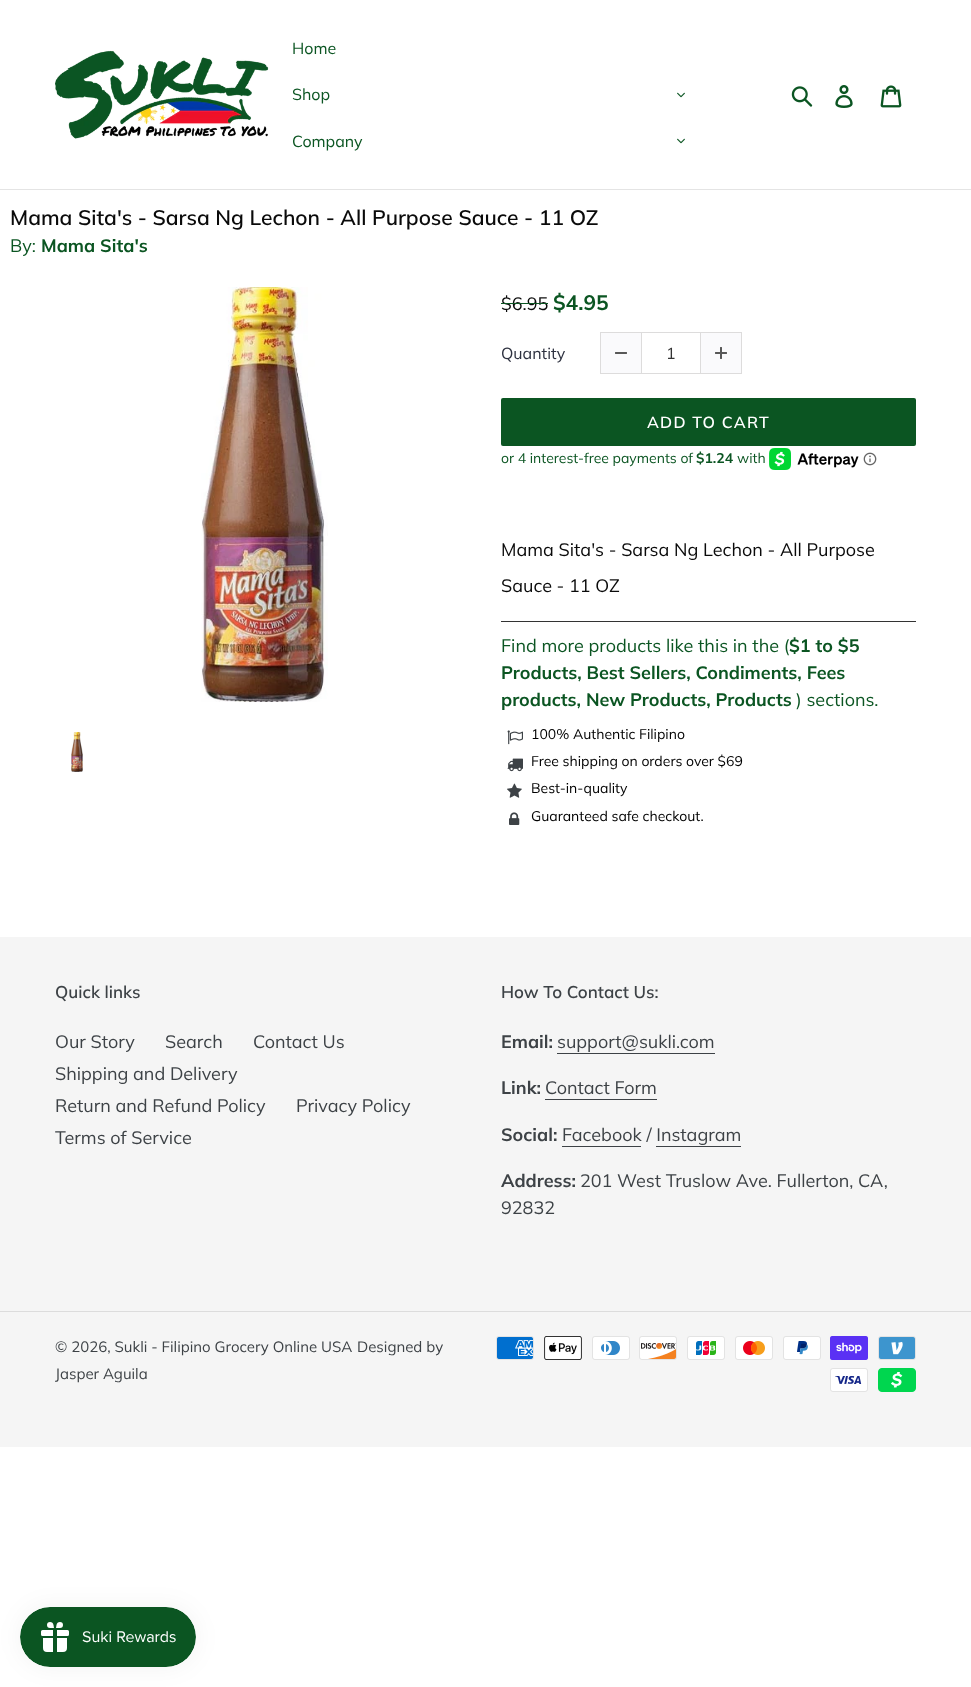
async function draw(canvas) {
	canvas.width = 971;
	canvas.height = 1687;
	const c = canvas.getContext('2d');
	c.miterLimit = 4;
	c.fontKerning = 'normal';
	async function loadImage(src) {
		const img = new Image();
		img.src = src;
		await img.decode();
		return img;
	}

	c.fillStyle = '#fff';
	c.fillRect(0, 0, 971, 1687);
	c.fillStyle = '#e4e4e4';
	c.fillRect(0, 189, 971, 1);
	c.drawImage(await loadImage('img1.png'), 55, 50, 214, 89);
	c.font = '16px Muli';
	c.fillStyle = '#0b5522';
	c.fillText('Home', 292, 54);
	c.fillText('Shop', 292, 100);
	c.drawImage(await loadImage('img2.png'), 677, 92, 8, 6);
	c.fillText('Company', 292, 147);
	c.drawImage(await loadImage('img2.png'), 677, 138, 8, 6);
	c.drawImage(await loadImage('img3.png'), 791, 86, 22, 21);
	c.drawImage(await loadImage('img4.png'), 835, 85, 18, 23);
	c.drawImage(await loadImage('img5.png'), 880, 85, 22, 23);
	c.font = '600 21px Muli';
	c.fillStyle = '#0a0a0a';
	c.fillText('Mama Sita\'s - Sarsa Ng Lechon - All Purpose Sauce - 11 OZ', 10, 225);
	c.font = '18px Muli';
	c.fillStyle = '#0b5522';
	c.fillText('By:', 10, 252);
	c.font = 'bold 18px Muli';
	c.fillText('Mama Sita\'s', 41, 252);
	c.drawImage(await loadImage('img6.png'), 201, 287, 127, 415);
	c.drawImage(await loadImage('img7.png'), 71, 732, 12, 40);
	c.font = '18px Muli';
	c.fillStyle = '#0a0a0a';
	c.fillText('$6.95', 501, 310);
	c.fillStyle = '#0b5522';
	c.fillRect(501, 303, 47, 1);
	c.font = 'bold 21px Muli';
	c.fillText('$4.95', 553, 310);
	c.font = '16px Muli';
	c.fillStyle = '#2d313f';
	c.fillText('Quantity', 501, 359);
	c.fillStyle = '#dddcdc';
	c.fillRect(641, 333, 1, 40);
	c.fillRect(700, 333, 1, 40);
	c.strokeStyle = '#dddcdc';
	c.strokeRect(600.5, 332.5, 141, 41);
	c.fillStyle = '#fafafc';
	c.fillRect(601, 333, 40, 40);
	c.drawImage(await loadImage('img8.png'), 615, 352, 12, 2);
	c.fillStyle = '#333';
	c.fillText('1', 666, 359);
	c.fillStyle = '#fafafc';
	c.fillRect(701, 333, 40, 40);
	c.drawImage(await loadImage('img9.png'), 715, 347, 12, 12);
	c.fillStyle = '#0b5522';
	c.beginPath();
	c.roundRect(501, 398, 415, 48, 2);
	c.fill();
	c.letterSpacing = '1.25px';
	c.font = '600 16px Muli';
	c.fillStyle = '#fff';
	c.fillText('ADD TO CART', 647, 428);
	c.letterSpacing = '0px';
	c.font = '14px Muli';
	c.fillStyle = '#0b5522';
	c.fillText('or 4 interest-free payments of', 501, 463);
	c.font = 'bold 14px Muli';
	c.fillText('$1.24', 696, 463);
	c.font = '14px Muli';
	c.fillText('with', 737, 463);
	c.drawImage(await loadImage('img10.png'), 769, 448, 90, 22);
	c.drawImage(await loadImage('img11.png'), 863, 452, 14, 14);
	c.font = '18px Muli';
	c.fillStyle = '#0a0a0a';
	c.fillText('Mama Sita\'s - Sarsa Ng Lechon - All Purpose', 501, 556);
	c.fillText('Sauce - 11 OZ', 501, 592);
	c.fillStyle = '#333';
	c.fillRect(501, 621, 415, 1);
	c.fillStyle = '#0b5522';
	c.fillText('Find more products like this in the (', 501, 652);
	c.font = 'bold 18px Muli';
	for (const [text, x, y] of [
		['$1 to $5', 789, 652],
		['Products, Best Sellers, Condiments, Fees', 501, 679],
		['products, New Products, Products', 501, 706],
	]) {
		c.fillText(text, x, y);
	}
	c.font = '18px Muli';
	c.fillText(') sections.', 796, 706);
	c.drawImage(await loadImage('img12.png'), 507, 730, 16, 15);
	c.font = '14px Muli';
	c.fillStyle = '#000';
	c.fillText('100% Authentic Filipino', 531, 739);
	c.drawImage(await loadImage('img13.png'), 507, 758, 16, 14);
	c.fillText('Free shipping on orders over $69', 531, 766);
	c.drawImage(await loadImage('img14.png'), 507, 783, 15, 15);
	c.fillText('Best-in-quality', 531, 793);
	c.drawImage(await loadImage('img15.png'), 509, 812, 11, 13);
	c.fillText('Guaranteed safe checkout.', 531, 821);
	c.fillStyle = '#f5f5f5';
	c.fillRect(0, 937, 971, 510);
	c.font = '600 17px Muli';
	c.fillStyle = '#3d4246';
	c.fillText('Quick links', 55, 998);
	c.font = '18px Muli';
	for (const [text, x, y] of [
		['Our Story', 55, 1048],
		['Search', 165, 1048],
		['Contact Us', 253, 1048],
		['Shipping and Delivery', 55, 1080],
		['Return and Refund Policy', 55, 1112],
		['Privacy Policy', 296, 1112],
		['Terms of Service', 55, 1144],
	]) {
		c.fillText(text, x, y);
	}
	c.font = '600 17px Muli';
	c.fillText('How To Contact Us:', 501, 998);
	c.font = 'bold 18px Muli';
	c.fillText('Email:', 501, 1048);
	c.font = '18px Muli';
	c.fillText('support@sukli.com', 557, 1048);
	c.fillRect(557, 1053, 158, 1);
	c.font = 'bold 18px Muli';
	c.fillText('Link:', 501, 1094);
	c.font = '18px Muli';
	c.fillText('Contact Form', 545, 1094);
	c.fillRect(545, 1099, 112, 1);
	c.font = 'bold 18px Muli';
	c.fillText('Social:', 501, 1141);
	c.font = '18px Muli';
	c.fillText('Facebook / Instagram', 562, 1141);
	c.fillRect(562, 1146, 79, 1);
	c.fillRect(656, 1146, 85, 1);
	c.font = 'bold 18px Muli';
	c.fillText('Address:', 501, 1187);
	c.font = '18px Muli';
	c.fillText('201 West Truslow Ave. Fullerton, CA,', 580, 1187);
	c.fillText('92832', 501, 1214);
	c.fillStyle = '#dcdcdc';
	c.fillRect(0, 1311, 971, 1);
	c.font = '15px Muli';
	c.fillStyle = '#3d4246';
	for (const [text, x, y] of [
		['© 2026, Sukli - Filipino Grocery Online USA', 55, 1352],
		['Designed by', 357, 1352],
		['Jasper Aguila', 55, 1379],
	]) {
		c.fillText(text, x, y);
	}
	c.drawImage(await loadImage('img16.png'), 496, 1336, 38, 24);
	c.drawImage(await loadImage('img17.png'), 544, 1336, 38, 24);
	c.drawImage(await loadImage('img18.png'), 592, 1336, 38, 24);
	c.drawImage(await loadImage('img19.png'), 639, 1336, 38, 24);
	c.drawImage(await loadImage('img20.png'), 687, 1336, 38, 24);
	c.drawImage(await loadImage('img21.png'), 735, 1336, 38, 24);
	c.drawImage(await loadImage('img22.png'), 783, 1336, 38, 24);
	c.drawImage(await loadImage('img23.png'), 830, 1336, 38, 24);
	c.drawImage(await loadImage('img24.png'), 878, 1336, 38, 24);
	c.drawImage(await loadImage('img25.png'), 830, 1368, 38, 24);
	c.drawImage(await loadImage('img26.png'), 878, 1368, 38, 24);
	c.fillStyle = '#0000000d';
	c.filter = 'blur(12.5px)';
	c.beginPath();
	c.roundRect(20, 1607, 176, 60, 30);
	c.fill();
	c.filter = 'none';
	c.drawImage(await loadImage('img27.png'), 20, 1607, 176, 60);
}

draw(document.querySelector('canvas'));
